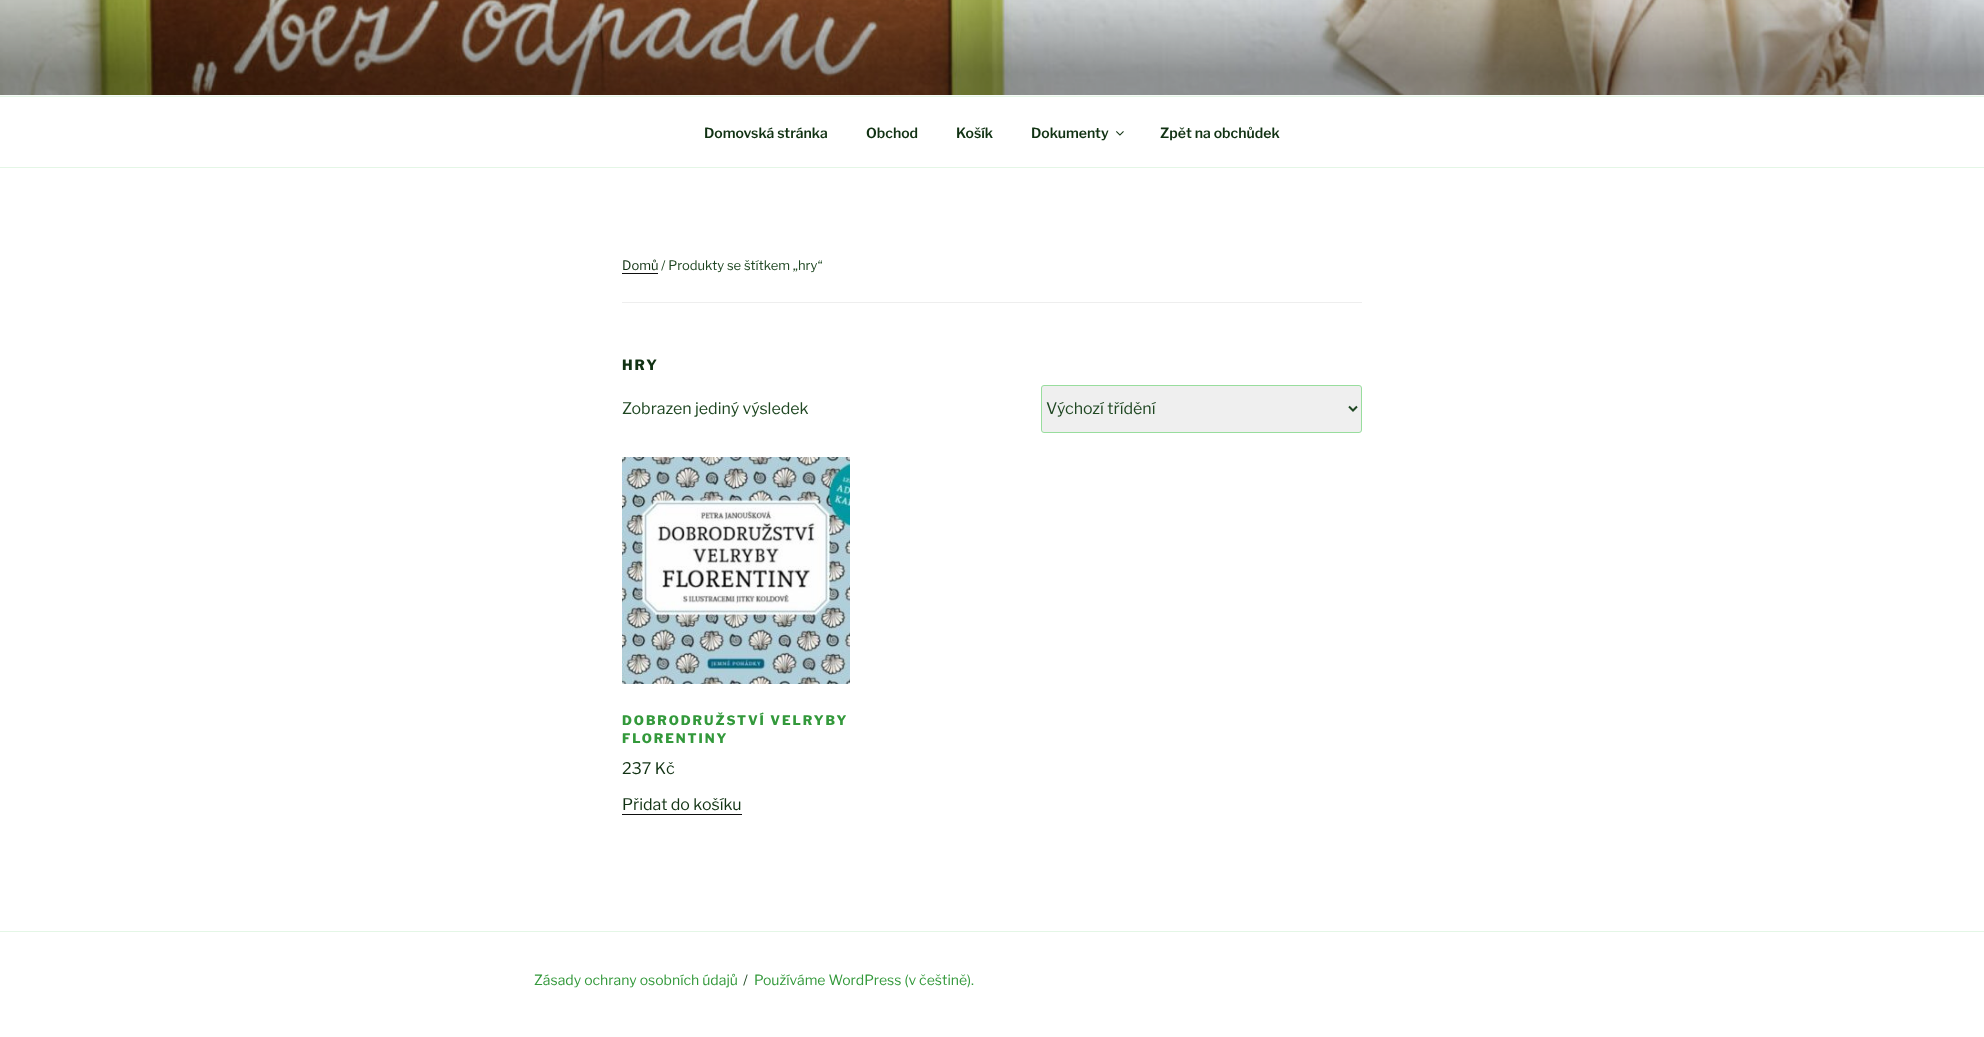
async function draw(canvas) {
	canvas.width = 1984;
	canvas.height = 1037;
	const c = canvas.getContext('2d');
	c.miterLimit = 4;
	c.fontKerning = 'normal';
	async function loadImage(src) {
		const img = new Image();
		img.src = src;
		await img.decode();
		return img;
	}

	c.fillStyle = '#fff';
	c.fillRect(0, 0, 1984, 1037);
	c.fillStyle = '#f7fcf8';
	c.fillRect(0, 95, 1984, 1);
	c.drawImage(await loadImage('img1.png'), 0, 0, 1984, 95);
	c.fillStyle = '#e4f6e6';
	c.fillRect(0, 96, 1984, 1);
	c.fillRect(0, 167, 1984, 1);
	c.font = '100 14px "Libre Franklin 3"';
	c.fillStyle = '#113213';
	for (const [text, x, y] of [
		['Domovská stránka', 704, 138],
		['Obchod', 866, 138],
		['Košík', 956, 138],
		['Dokumenty', 1031, 138],
	]) {
		c.fillText(text, x, y);
	}
	c.drawImage(await loadImage('img2.png'), 1116, 131, 8, 5);
	c.fillText('Zpět na obchůdek', 1160, 138);
	c.fillStyle = '#eee';
	c.fillRect(622, 302, 740, 1);
	c.font = '100 13px Libre Franklin';
	c.fillStyle = '#113213';
	c.fillText('Domů', 622, 270);
	c.fillStyle = '#0f0f0f';
	c.fillRect(622, 273, 36, 1);
	c.fillStyle = '#1f4722';
	c.fillText('/ Produkty se štítkem „hry“', 661, 270);
	c.letterSpacing = '2px';
	c.font = '100 14px "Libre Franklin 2"';
	c.fillStyle = '#113213';
	c.fillText('HRY', 622, 370);
	c.letterSpacing = '0px';
	c.font = '100 16px Libre Franklin';
	c.fillStyle = '#1f4722';
	c.fillText('Zobrazen jediný výsledek', 622, 414);
	c.fillStyle = '#efefef';
	c.beginPath();
	c.roundRect(1041.5, 385.5, 320, 47, 2.5);
	c.fill();
	c.strokeStyle = '#98dd9d';
	c.stroke();
	c.beginPath();
	c.moveTo(1349, 406.5);
	c.lineTo(1353, 410.5);
	c.lineTo(1357, 406.5);
	c.strokeStyle = '#1f4722';
	c.lineWidth = 2;
	c.stroke();
	c.fillStyle = '#1f4722';
	c.fillText('Výchozí třídění', 1046, 414);
	c.drawImage(await loadImage('img3.png'), 622, 457, 228, 227);
	c.letterSpacing = '1.95px';
	c.font = '100 13px "Libre Franklin 2"';
	c.fillStyle = '#33993b';
	c.fillText('DOBRODRUŽSTVÍ VELRYBY', 622, 725);
	c.fillText('FLORENTINY', 622, 743);
	c.letterSpacing = '0px';
	c.font = '100 16px Libre Franklin';
	c.fillStyle = '#113213';
	c.fillText('237 Kč', 622, 774);
	c.fillText('Přidat do košíku', 622, 810);
	c.fillStyle = '#0f0f0f';
	c.fillRect(622, 814, 120, 1);
	c.fillStyle = '#e4f6e6';
	c.fillRect(0, 931, 1984, 1);
	c.font = '100 14px Libre Franklin';
	c.fillStyle = '#33993b';
	c.fillText('Zásady ochrany osobních údajů', 534, 985);
	c.fillStyle = '#1f4722';
	c.fillText('/', 743, 985);
	c.fillStyle = '#33993b';
	c.fillText('Používáme WordPress (v češtině).', 754, 985);
}

draw(document.querySelector('canvas'));
